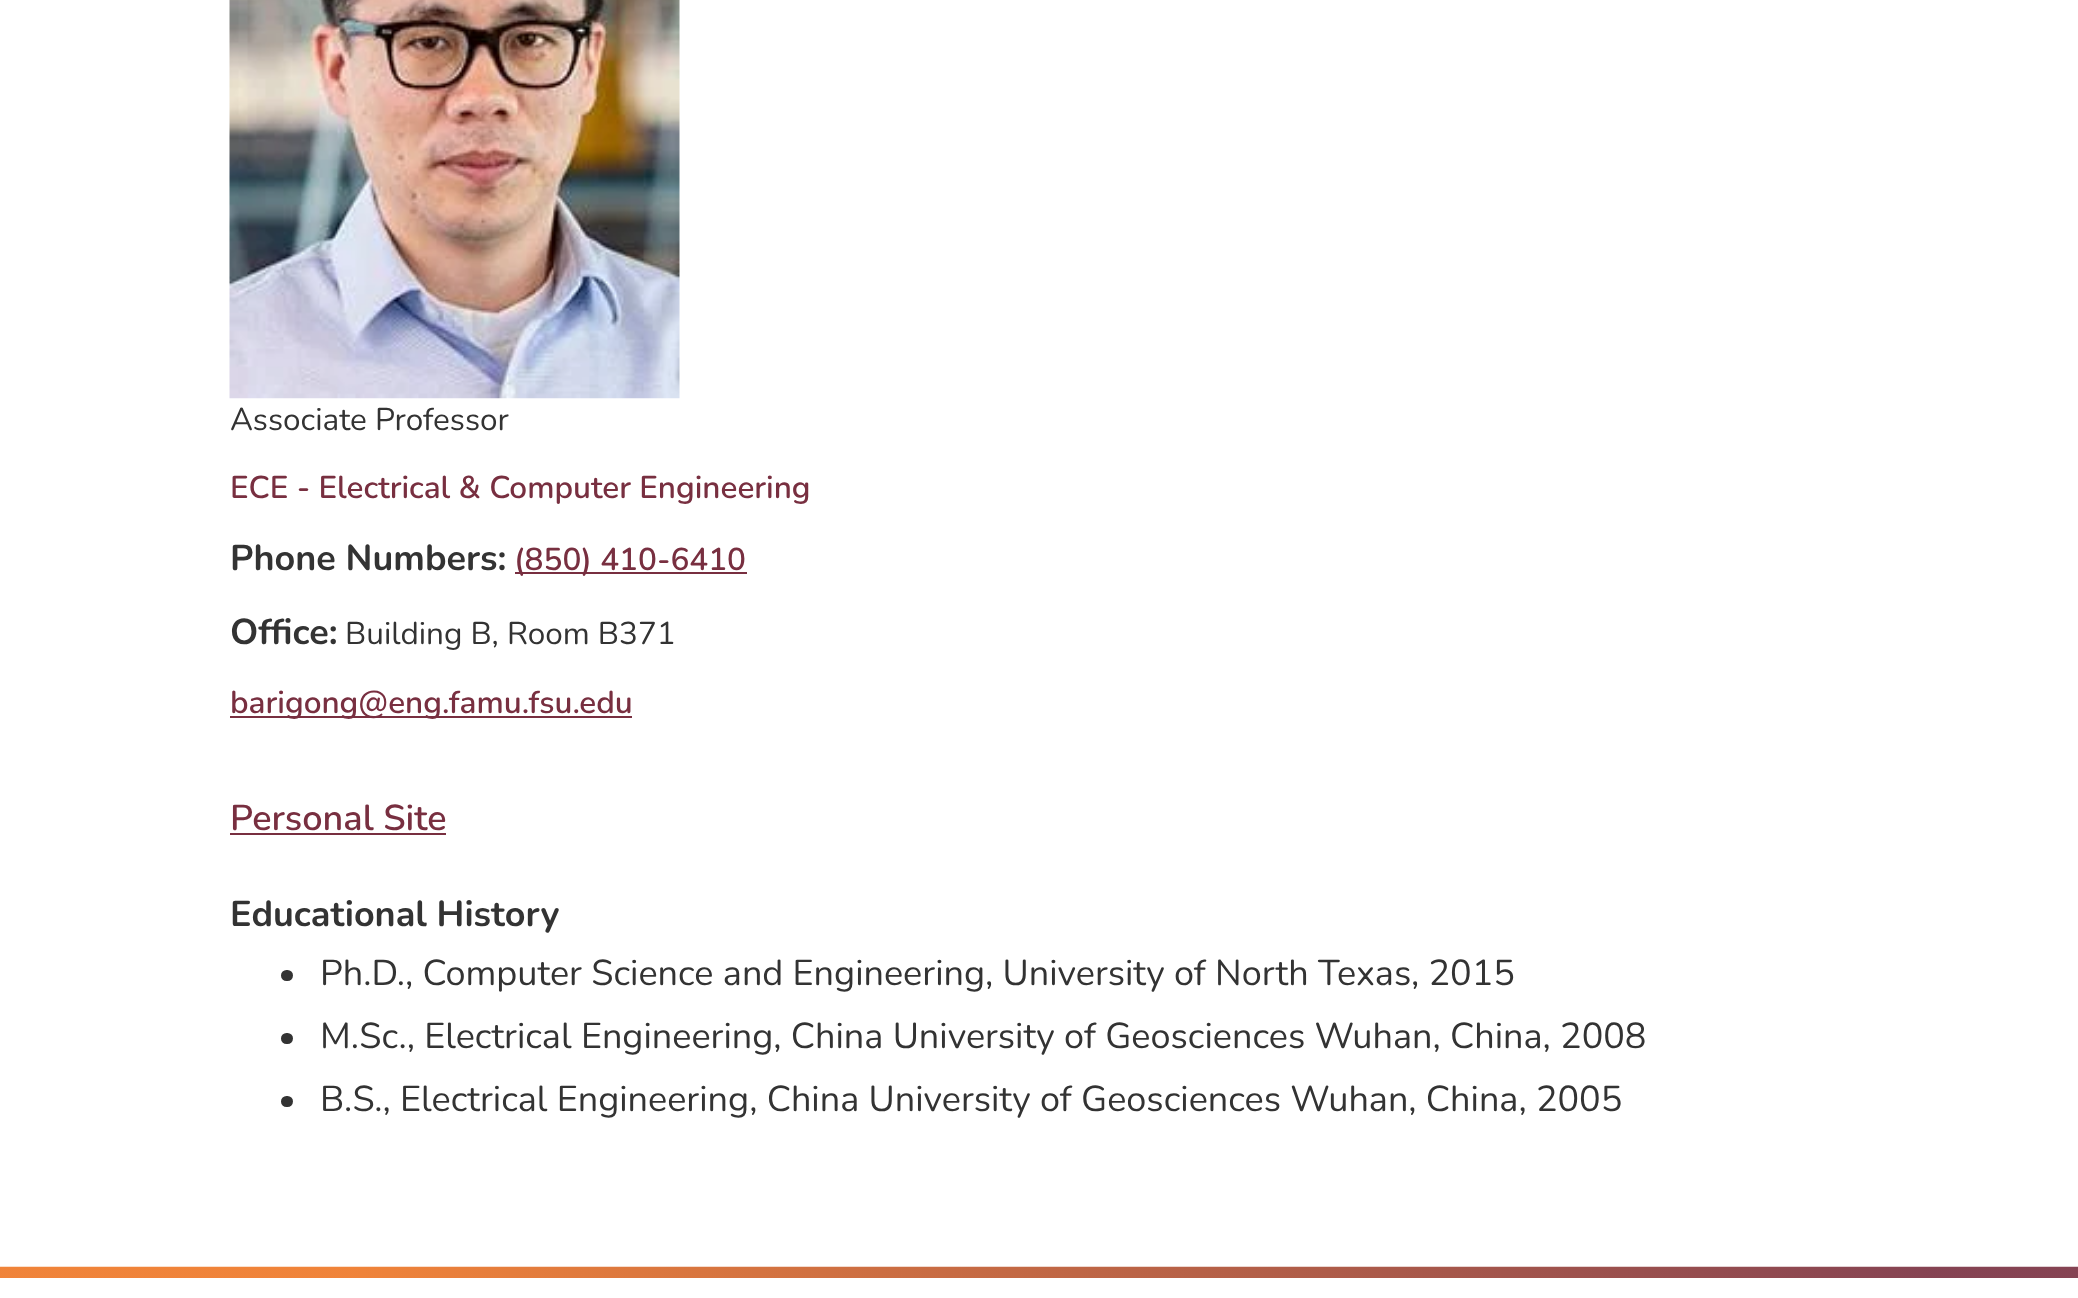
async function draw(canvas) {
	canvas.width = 2078;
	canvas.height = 1298;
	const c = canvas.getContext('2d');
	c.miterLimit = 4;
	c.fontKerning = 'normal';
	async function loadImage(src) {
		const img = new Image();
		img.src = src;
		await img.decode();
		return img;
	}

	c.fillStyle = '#fff';
	c.fillRect(0, 0, 2078, 1298);
	c.drawImage(await loadImage('img1.png'), 229, 0, 451, 399);
	c.font = '31.5px Nunito';
	c.fillStyle = '#333';
	c.fillText('Associate Professor', 230, 430);
	c.font = '600 31.5px Nunito';
	c.fillStyle = '#782f40';
	c.fillText('ECE - Electrical & Computer Engineering', 230, 498);
	c.font = 'bold 36px Nunito';
	c.fillStyle = '#333';
	c.fillText('Phone Numbers:', 230, 570);
	c.fillStyle = '#782f40';
	c.fillRect(515, 572, 232, 2);
	c.font = '600 31.5px Nunito';
	c.fillText('(850) 410-6410', 514, 570);
	c.font = 'bold 36px Nunito';
	c.fillStyle = '#333';
	c.fillText('Office:', 230, 644);
	c.font = '31.5px Nunito';
	c.fillText('Building B, Room B371', 345, 644);
	c.fillStyle = '#782f40';
	c.fillRect(230, 716, 402, 2);
	c.font = '600 31.5px Nunito';
	c.fillText('barigong@eng.famu.fsu.edu', 230, 713);
	c.font = '600 36px Nunito';
	c.fillText('Personal Site', 230, 830);
	c.fillRect(230, 833, 216, 2);
	c.font = 'bold 36px Nunito';
	c.fillStyle = '#333';
	c.fillText('Educational History', 230, 926);
	c.beginPath();
	c.roundRect(281, 970, 12, 11, 5.5);
	c.fill();
	c.font = '36px Nunito';
	c.fillText('Ph.D., Computer Science and Engineering, University of North Texas, 2015', 320, 985);
	c.beginPath();
	c.roundRect(281, 1033, 12, 11, 5.5);
	c.fill();
	c.fillText('M.Sc., Electrical Engineering, China University of Geosciences Wuhan, China, 2008', 320, 1048);
	c.beginPath();
	c.roundRect(281, 1096, 12, 11, 5.5);
	c.fill();
	c.fillText('B.S., Electrical Engineering, China University of Geosciences Wuhan, China, 2005', 320, 1111);
	c.drawImage(await loadImage('img2.png'), 0, 1266, 2078, 12);
}

draw(document.querySelector('canvas'));
